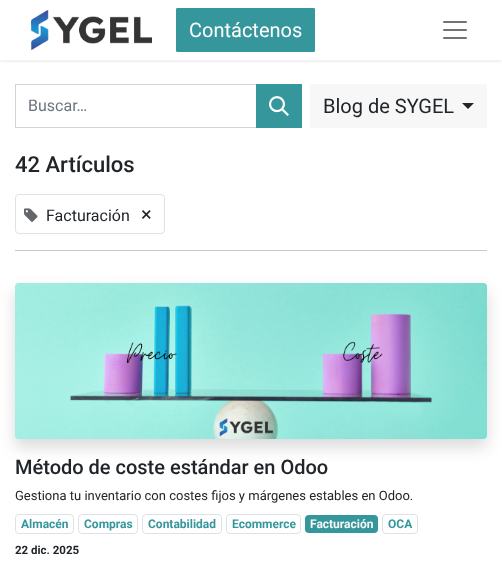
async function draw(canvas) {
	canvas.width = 502;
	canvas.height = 566;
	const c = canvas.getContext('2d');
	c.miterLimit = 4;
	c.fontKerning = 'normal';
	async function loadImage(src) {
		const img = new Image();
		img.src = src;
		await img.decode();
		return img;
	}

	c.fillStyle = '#fff';
	c.fillRect(0, 0, 502, 566);
	c.save();
	c.beginPath();
	c.rect(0, 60, 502, 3);
	c.clip();
	c.fillStyle = '#00000012';
	c.filter = 'blur(2px)';
	c.beginPath();
	c.rect(0, 2, 502, 60);
	c.fill();
	c.filter = 'none';
	c.restore();
	c.drawImage(await loadImage('img1.png'), 31, 10, 121, 40);
	c.fillStyle = '#35979c';
	c.beginPath();
	c.roundRect(176.5, 8.5, 138, 43, 0.5);
	c.fill();
	c.strokeStyle = '#35979c';
	c.stroke();
	c.font = '20px Roboto';
	c.fillStyle = '#fff';
	c.fillText('Contáctenos', 189, 37);
	c.drawImage(await loadImage('img2.png'), 443, 21, 24, 18);
	c.strokeStyle = '#ced4da';
	c.strokeRect(15.5, 84.5, 241, 43);
	c.font = '16px Roboto';
	c.fillStyle = '#6c757d';
	c.fillText('Buscar…', 28, 111);
	c.fillStyle = '#35979c';
	c.fillRect(256, 84, 46, 44);
	c.drawImage(await loadImage('img3.png'), 269, 96, 20, 20);
	c.fillStyle = '#f7f7f7';
	c.beginPath();
	c.roundRect(310, 84, 177, 44, 1);
	c.fill();
	c.font = '20px Roboto';
	c.fillStyle = '#212529';
	c.fillText('Blog de SYGEL', 323, 113);
	c.beginPath();
	c.moveTo(462, 103);
	c.lineTo(474, 103);
	c.lineTo(468, 109);
	c.closePath();
	c.fill();
	c.font = '500 22px Roboto';
	c.fillText('42 Artículos', 15, 172);
	c.beginPath();
	c.roundRect(15.5, 194.5, 149, 39, 3.5);
	c.strokeStyle = '#dee2e6';
	c.stroke();
	c.drawImage(await loadImage('img4.png'), 24, 208, 14, 14);
	c.font = '16px Roboto';
	c.fillText('Facturación', 46, 221);
	c.font = '20px Roboto';
	c.fillText('×', 141, 221);
	c.fillStyle = '#c8c9ca';
	c.fillRect(15, 250, 472, 1);
	c.fillStyle = '#00000026';
	c.filter = 'blur(8px)';
	c.beginPath();
	c.roundRect(15, 291, 472, 156, 4);
	c.fill();
	c.filter = 'none';
	c.drawImage(await loadImage('img5.png'), 15, 283, 472, 156);
	c.font = '500 20px Roboto';
	c.fillStyle = '#212529';
	c.fillText('Método de coste estándar en Odoo', 15, 474);
	c.font = '13px Roboto';
	c.fillText('Gestiona tu inventario con costes fijos y márgenes estables en Odoo.', 15, 500);
	c.beginPath();
	c.roundRect(15.5, 514.5, 58, 19, 3.5);
	c.stroke();
	c.font = 'bold 12px Roboto';
	c.fillStyle = '#35979c';
	c.fillText('Almacén', 21, 528);
	c.beginPath();
	c.roundRect(78.5, 514.5, 59, 19, 3.5);
	c.stroke();
	c.fillText('Compras', 84, 528);
	c.beginPath();
	c.roundRect(142.5, 514.5, 79, 19, 3.5);
	c.stroke();
	c.fillText('Contabilidad', 148, 528);
	c.beginPath();
	c.roundRect(226.5, 514.5, 74, 19, 3.5);
	c.stroke();
	c.fillText('Ecommerce', 232, 528);
	c.beginPath();
	c.roundRect(305, 515, 73, 18, 4);
	c.fill();
	c.fillStyle = '#f7f7f7';
	c.fillText('Facturación', 310, 528);
	c.beginPath();
	c.roundRect(382.5, 514.5, 35, 19, 3.5);
	c.stroke();
	c.fillStyle = '#35979c';
	c.fillText('OCA', 388, 528);
	c.font = 'bold 11.5px Roboto';
	c.fillStyle = '#212529';
	c.fillText('22 dic. 2025', 15, 554);
}

draw(document.querySelector('canvas'));
